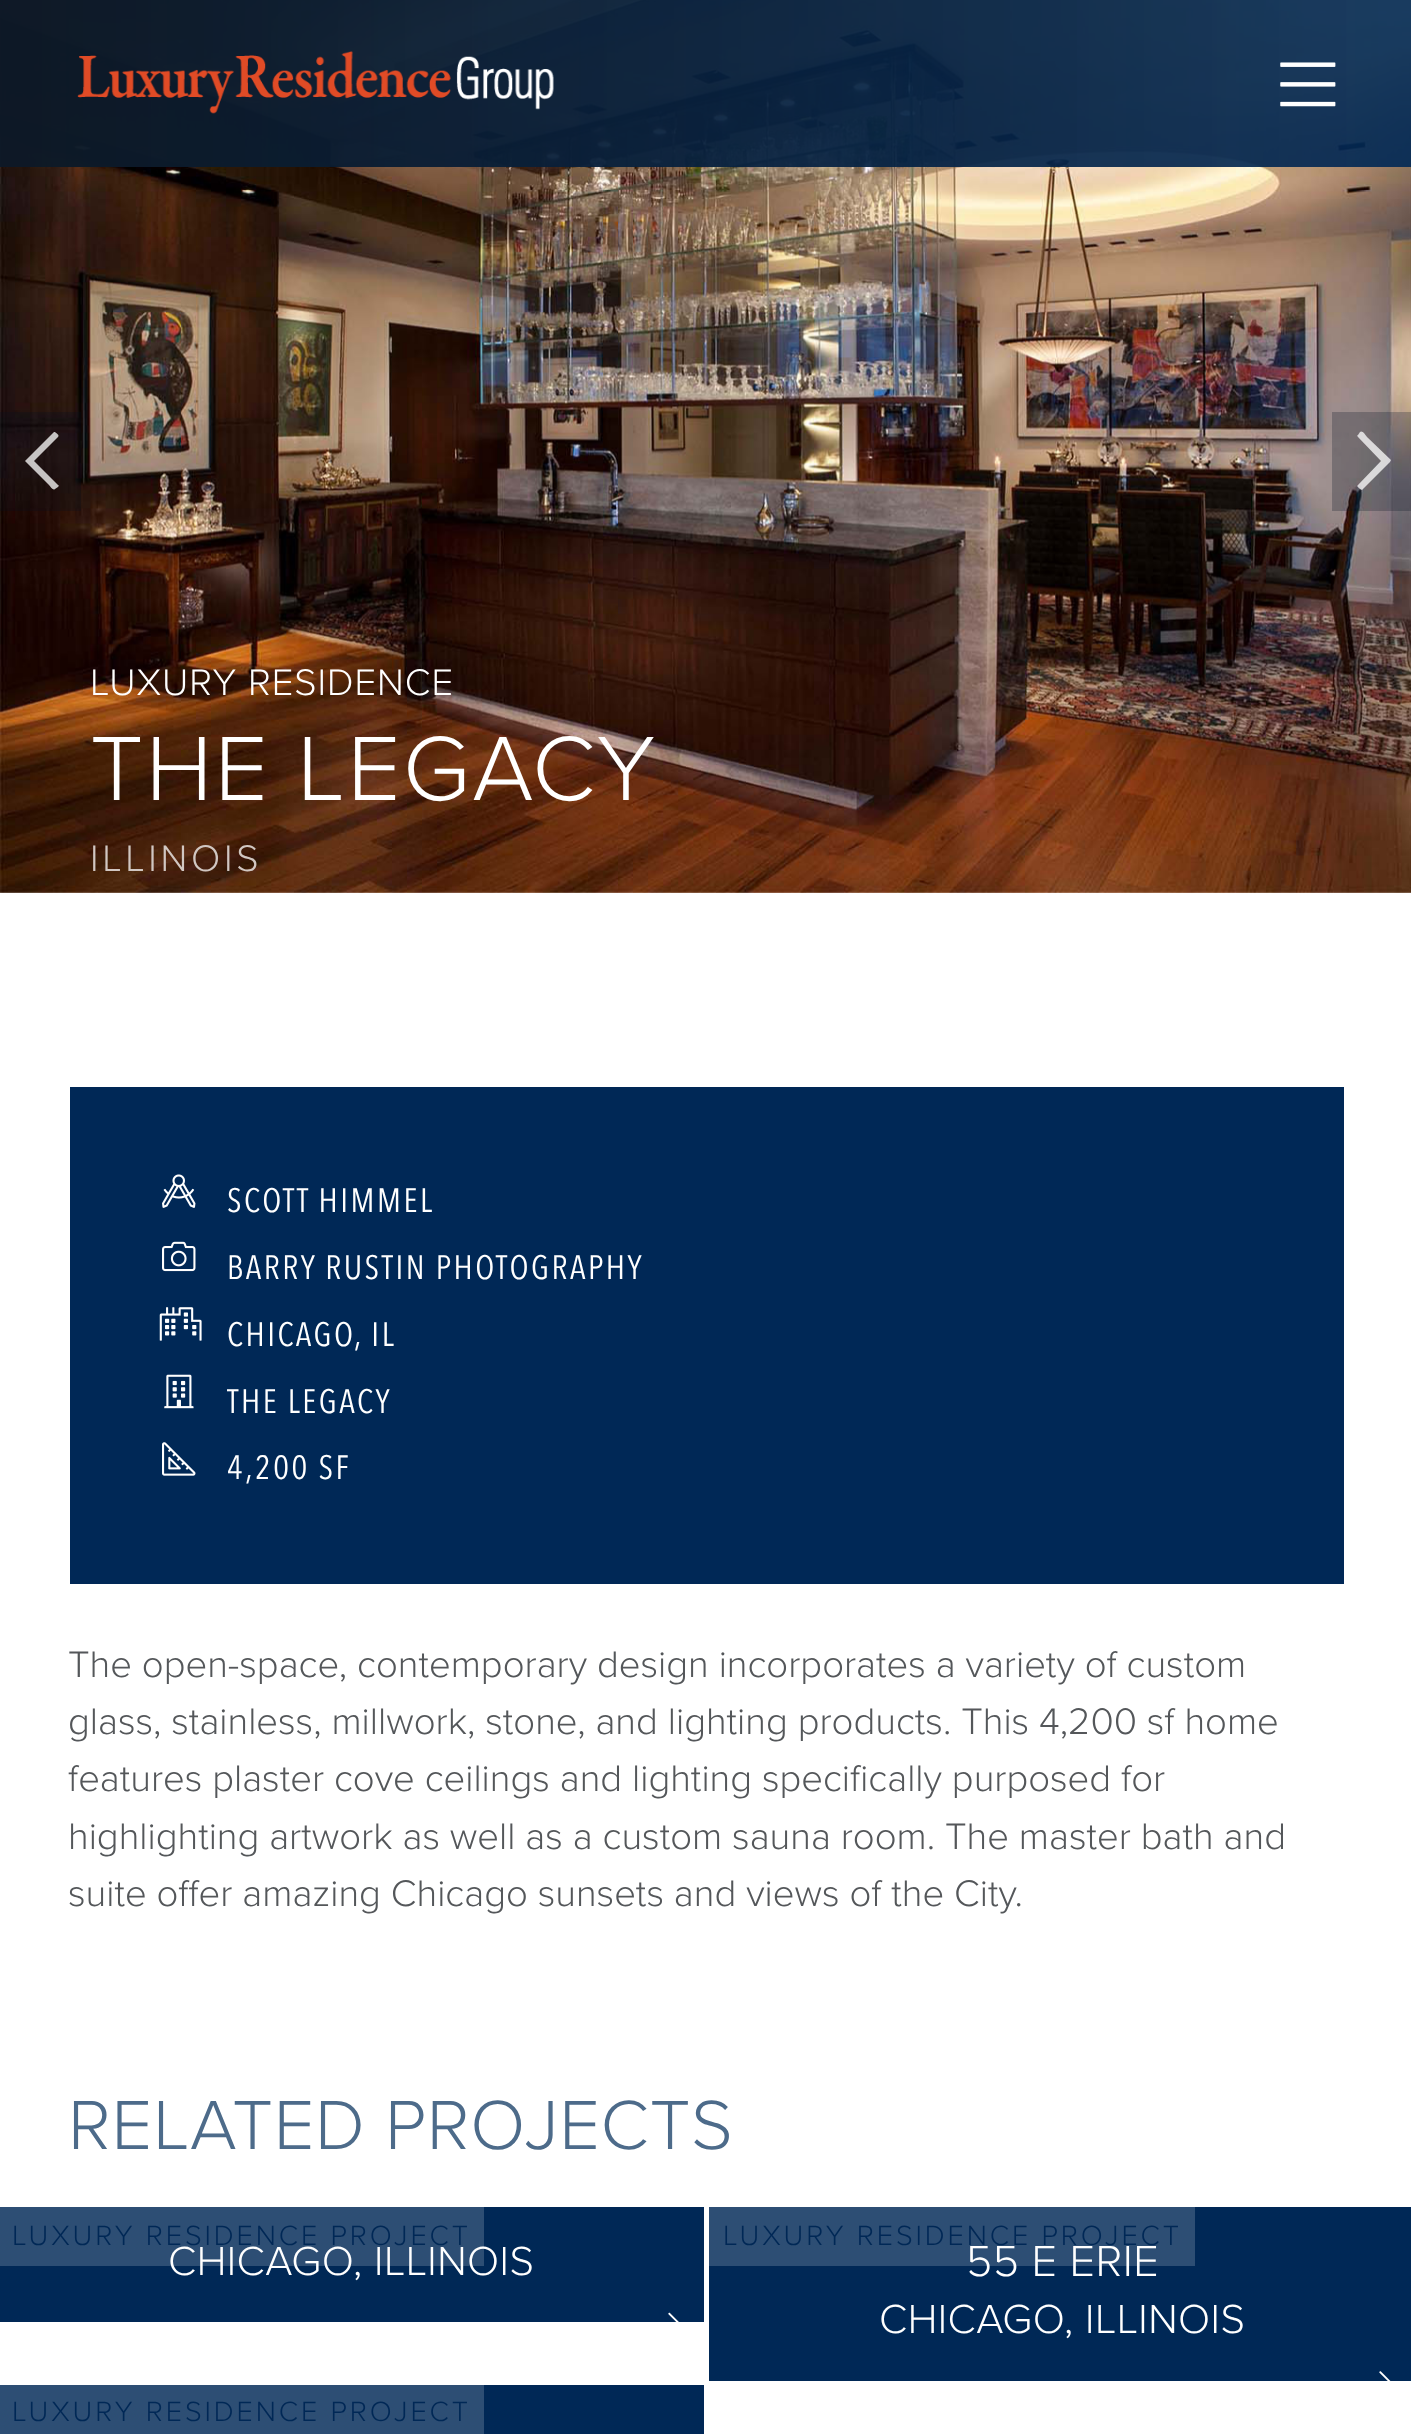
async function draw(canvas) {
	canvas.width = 1411;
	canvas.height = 2434;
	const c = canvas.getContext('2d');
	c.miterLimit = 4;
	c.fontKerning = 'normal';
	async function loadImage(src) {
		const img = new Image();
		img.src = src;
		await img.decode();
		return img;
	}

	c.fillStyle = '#fff';
	c.fillRect(0, 0, 1411, 2434);
	c.drawImage(await loadImage('img3.png'), 0, 0, 1411, 893);
	c.drawImage(await loadImage('img1.png'), 77, 51, 477, 63);
	c.drawImage(await loadImage('img2.png'), 1280, 62, 56, 45);
	c.fillStyle = '#03111e40';
	c.fillRect(0, 412, 81, 99);
	c.fillStyle = '#ffffffbf';
	c.beginPath();
	c.moveTo(55, 489);
	c.bezierCurveTo(53, 491, 51, 487, 49, 485);
	c.lineTo(25, 461);
	c.lineTo(26, 460);
	c.lineTo(54, 432);
	c.lineTo(55, 432);
	c.bezierCurveTo(56, 433, 60, 435, 58, 437);
	c.lineTo(34, 461);
	c.lineTo(58, 485);
	c.bezierCurveTo(59, 485, 59, 486, 58, 487);
	c.closePath();
	c.fill();
	c.fillStyle = '#03111e40';
	c.fillRect(1332, 412, 79, 99);
	c.fillStyle = '#ffffffbf';
	c.beginPath();
	c.moveTo(1360, 432);
	c.bezierCurveTo(1362, 430, 1365, 434, 1367, 437);
	c.lineTo(1391, 460);
	c.lineTo(1390, 462);
	c.lineTo(1362, 490);
	c.lineTo(1360, 489);
	c.bezierCurveTo(1359, 488, 1356, 486, 1358, 485);
	c.lineTo(1381, 461);
	c.lineTo(1358, 437);
	c.bezierCurveTo(1357, 436, 1357, 435, 1358, 435);
	c.closePath();
	c.fill();
	c.letterSpacing = '1px';
	c.font = '300 38.25px Proxima Nova';
	c.fillStyle = '#fff';
	c.fillText('LUXURY RESIDENCE', 90, 695);
	c.letterSpacing = '2.4px';
	c.font = '300 94.5px Proxima Nova';
	c.fillText('THE LEGACY', 90, 800);
	c.letterSpacing = '3.75px';
	c.font = '300 38.25px Proxima Nova';
	c.fillStyle = '#d1c7c2';
	c.fillText('ILLINOIS', 90, 871);
	c.fillStyle = '#002856';
	c.fillRect(70, 1087, 1274, 497);
	c.drawImage(await loadImage('img4.png'), 162, 1174, 34, 34);
	c.letterSpacing = '2.5px';
	c.font = '33.5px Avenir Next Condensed';
	c.fillStyle = '#fff';
	c.fillText('SCOTT HIMMEL', 227, 1212);
	c.drawImage(await loadImage('img5.png'), 162, 1241, 34, 31);
	c.fillText('BARRY RUSTIN PHOTOGRAPHY', 227, 1279);
	c.drawImage(await loadImage('img6.png'), 159, 1307, 43, 34);
	c.fillText('CHICAGO, IL', 227, 1346);
	c.drawImage(await loadImage('img7.png'), 164, 1374, 30, 35);
	c.fillText('THE LEGACY', 227, 1413);
	c.drawImage(await loadImage('img8.png'), 162, 1442, 34, 34);
	c.fillText('4,200 SF', 227, 1479);
	c.letterSpacing = '0px';
	c.font = '300 38.25px Proxima Nova';
	c.fillStyle = '#54575a';
	for (const [text, x, y] of [
		['The open-space, contemporary design incorporates a variety of custom', 68, 1677],
		['glass, stainless, millwork, stone, and lighting products. This 4,200 sf home', 68, 1734],
		['features plaster cove ceilings and lighting specifically purposed for', 68, 1791],
		['highlighting artwork as well as a custom sauna room. The master bath and', 68, 1849],
		['suite offer amazing Chicago sunsets and views of the City.', 68, 1906],
	]) {
		c.fillText(text, x, y);
	}
	c.letterSpacing = '0.75px';
	c.font = '300 72px Proxima Nova';
	c.fillStyle = '#4d6b8a';
	c.fillText('RELATED PROJECTS', 68, 2149);
	c.fillStyle = '#002856';
	c.fillRect(0, 2207, 704, 115);
	c.fillStyle = '#2d4e74';
	c.fillRect(0, 2207, 484, 59);
	c.letterSpacing = '2.9px';
	c.font = '300 28.75px Proxima Nova';
	c.fillStyle = '#002856';
	c.fillText('LUXURY RESIDENCE PROJECT', 12, 2245);
	c.letterSpacing = '0.5px';
	c.font = '300 42px Proxima Nova';
	c.fillStyle = '#fff';
	c.fillText('CHICAGO, ILLINOIS', 168, 2275);
	c.drawImage(await loadImage('img9.png'), 668, 2312, 11, 10);
	c.fillStyle = '#002856';
	c.fillRect(709, 2207, 702, 174);
	c.fillStyle = '#2d4e74';
	c.fillRect(709, 2207, 486, 59);
	c.letterSpacing = '2.9px';
	c.font = '300 28.75px Proxima Nova';
	c.fillStyle = '#002856';
	c.fillText('LUXURY RESIDENCE PROJECT', 723, 2245);
	c.letterSpacing = '0.5px';
	c.font = '300 45px Proxima Nova';
	c.fillStyle = '#fff';
	c.fillText('55 E ERIE', 966, 2276);
	c.font = '300 42px Proxima Nova';
	c.fillText('CHICAGO, ILLINOIS', 879, 2333);
	c.drawImage(await loadImage('img10.png'), 1379, 2371, 12, 10);
	c.fillStyle = '#2d4e74';
	c.fillRect(0, 2385, 484, 49);
	c.letterSpacing = '2.9px';
	c.font = '300 28.75px Proxima Nova';
	c.fillStyle = '#002856';
	c.fillText('LUXURY RESIDENCE PROJECT', 12, 2421);
	c.fillRect(484, 2385, 220, 49);
}

draw(document.querySelector('canvas'));
